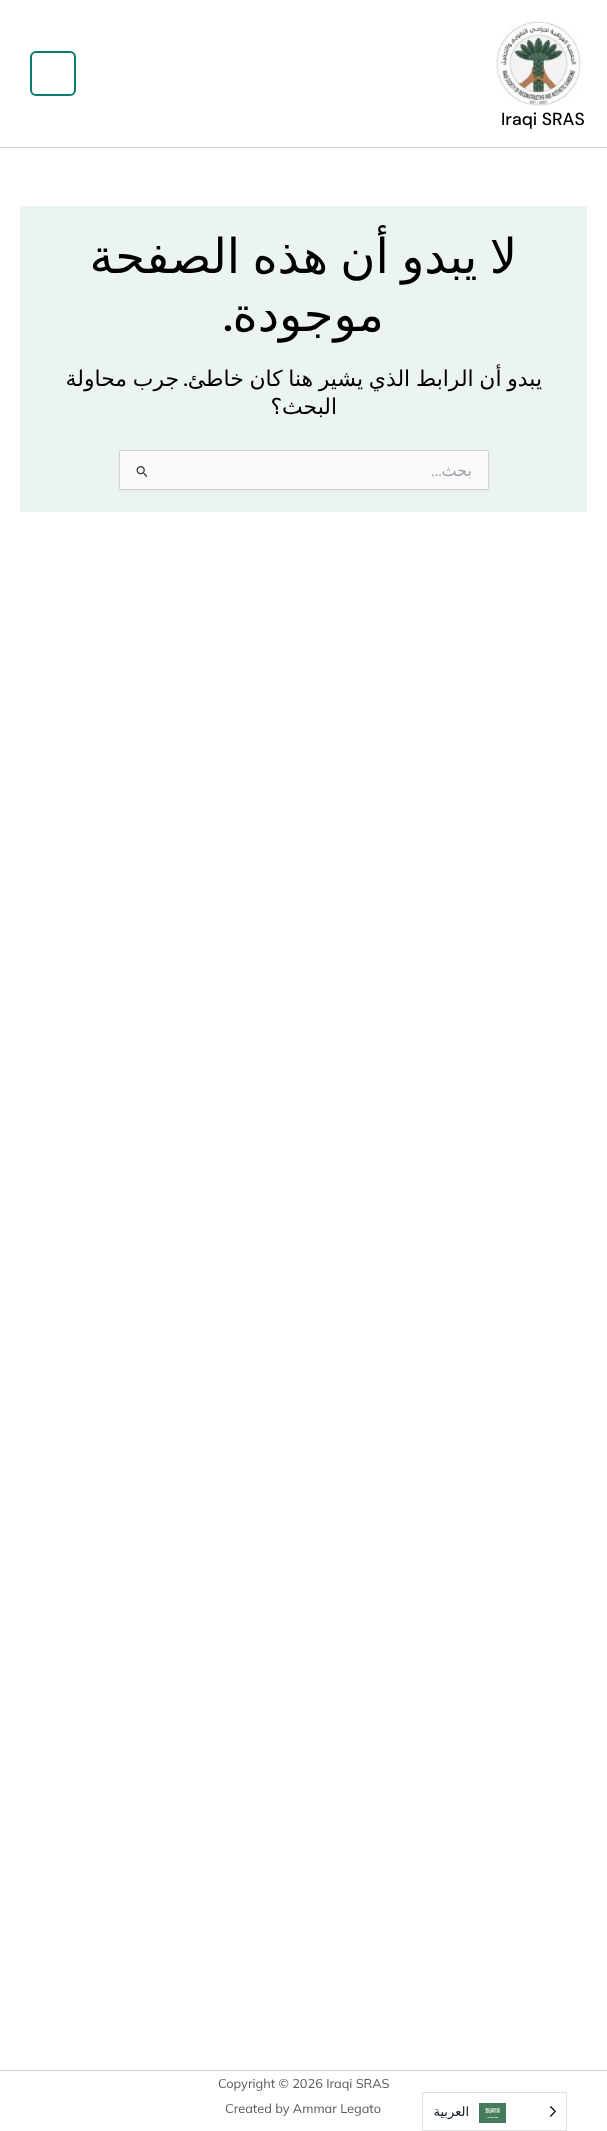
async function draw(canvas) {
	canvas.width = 607;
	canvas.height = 2131;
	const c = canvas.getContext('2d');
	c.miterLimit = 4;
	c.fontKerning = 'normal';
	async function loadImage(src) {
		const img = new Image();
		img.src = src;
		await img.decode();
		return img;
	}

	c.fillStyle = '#fff';
	c.fillRect(0, 0, 607, 2131);
	c.fillStyle = '#d1d1d1';
	c.fillRect(0, 147, 607, 1);
	c.beginPath();
	c.roundRect(31, 52, 44, 43, 5);
	c.strokeStyle = '#097c6e';
	c.lineWidth = 2;
	c.stroke();
	c.drawImage(await loadImage('img1.png'), 496, 21, 85, 85);
	c.font = '500 17.5px DM Sans';
	c.fillStyle = '#000';
	c.fillText('Iraqi SRAS', 501, 125);
	c.fillStyle = '#ecf4f3';
	c.fillRect(20, 206, 567, 306);
	c.wordSpacing = '-3px';
	c.direction = 'rtl';
	c.font = '48px DejaVu Sans';
	c.fillStyle = '#000';
	c.fillText('لا يبدو أن هذه الصفحة', 517, 273);
	c.wordSpacing = '0px';
	c.fillText('موجودة', 384, 331);
	c.font = '500 48px DM Sans';
	c.fillText('.', 233, 331);
	c.wordSpacing = '-1.25px';
	c.font = '21.9px DejaVu Sans';
	c.fillText('يبدو أن الرابط الذي يشير هنا كان خاطئ', 542, 386);
	c.wordSpacing = '0px';
	c.font = '500 21.9px DM Sans';
	c.fillText('.', 188, 386);
	c.wordSpacing = '-1.25px';
	c.font = '21.9px DejaVu Sans';
	c.fillText('جرب محاولة', 179, 386);
	c.wordSpacing = '0px';
	c.fillText('البحث؟', 337, 414);
	c.fillStyle = '#0000000d';
	c.filter = 'blur(1px)';
	c.beginPath();
	c.roundRect(119, 451, 370, 40, 2);
	c.fill();
	c.filter = 'none';
	c.fillStyle = '#fafafa';
	c.beginPath();
	c.roundRect(119.5, 450.5, 369, 39, 1.5);
	c.fill();
	c.strokeStyle = '#d1d1d1';
	c.lineWidth = 1;
	c.stroke();
	c.font = '16px DejaVu Sans';
	c.fillStyle = '#9ca3af';
	c.fillText('بحث', 472, 476);
	c.font = '16px Mulish';
	c.fillText('...', 442, 476);
	c.drawImage(await loadImage('img2.png'), 136, 466, 11, 12);
	c.fillStyle = '#d1d1d1';
	c.fillRect(0, 2070, 607, 1);
	c.direction = 'ltr';
	c.font = '12.75px Mulish';
	c.fillStyle = '#595959';
	c.fillText('Copyright © 2026 Iraqi SRAS', 218, 2088);
	c.fillText('Created by Ammar Legato', 225, 2113);
	c.strokeStyle = '#e0e0e0';
	c.strokeRect(422.5, 2092.5, 144, 38);
	c.drawImage(await loadImage('img3.png'), 550, 2106, 6, 11);
	c.drawImage(await loadImage('img4.png'), 479, 2103, 27, 20);
	c.direction = 'rtl';
	c.font = '13px DejaVu Sans';
	c.fillStyle = '#111827';
	c.fillText('العربية', 469, 2116);
}

draw(document.querySelector('canvas'));
